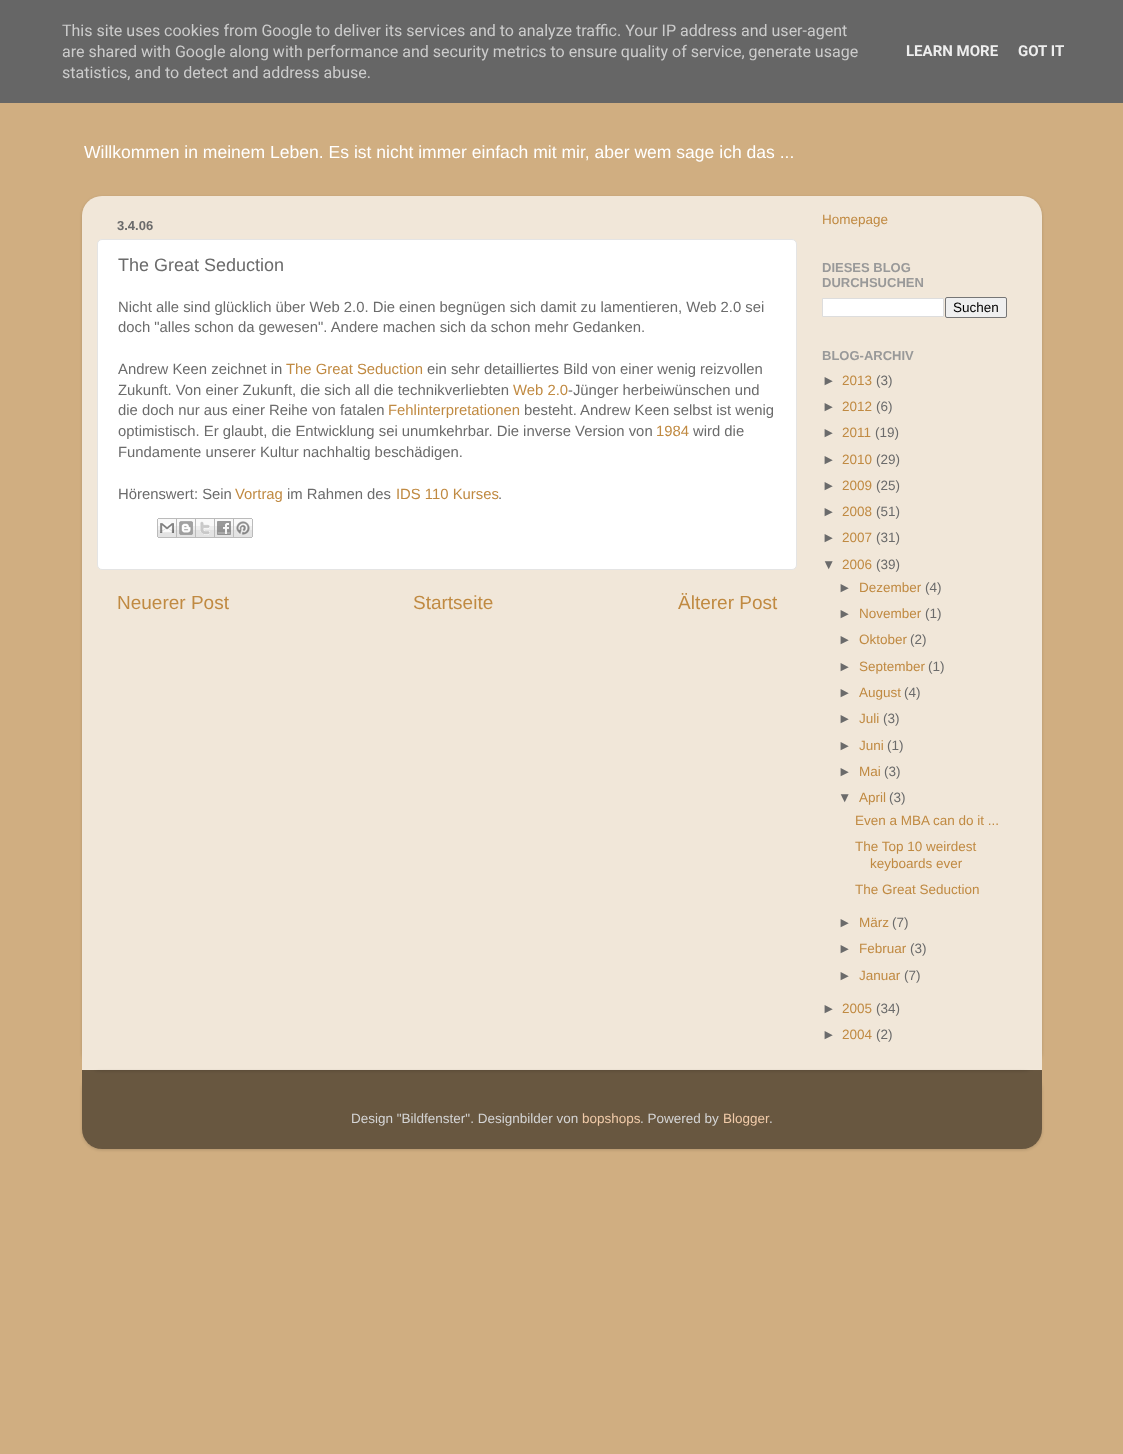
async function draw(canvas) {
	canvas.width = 1123;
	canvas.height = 1454;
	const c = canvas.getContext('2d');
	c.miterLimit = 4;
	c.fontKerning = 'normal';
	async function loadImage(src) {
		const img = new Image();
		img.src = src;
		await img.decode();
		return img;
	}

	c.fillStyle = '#d0ae81';
	c.fillRect(0, 0, 1123, 1454);
	c.fillStyle = '#666';
	c.fillRect(0, 0, 1123, 103);
	c.font = '16px Roboto';
	c.fillStyle = '#ccc';
	for (const [text, x, y] of [
		['This site uses cookies from Google to deliver its services and to analyze traffic. Your IP address and user-agent', 62, 36],
		['are shared with Google along with performance and security metrics to ensure quality of service, generate usage', 62, 57],
		['statistics, and to detect and address abuse.', 62, 78],
	]) {
		c.fillText(text, x, y);
	}
	c.font = 'bold 15px Roboto';
	c.fillStyle = '#eee';
	c.fillText('LEARN MORE', 906, 56);
	c.fillText('GOT IT', 1018, 56);
	c.font = '17.55px Liberation Sans';
	c.fillStyle = '#fff';
	c.fillText('Willkommen in meinem Leben. Es ist nicht immer einfach mit mir, aber wem sage ich das ...', 84, 158);
	c.save();
	c.beginPath();
	c.moveTo(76, 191);
	c.lineTo(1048, 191);
	c.lineTo(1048, 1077);
	c.lineTo(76, 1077);
	c.closePath();
	c.moveTo(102, 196);
	c.lineTo(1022, 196);
	c.bezierCurveTo(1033, 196, 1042, 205, 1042, 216);
	c.lineTo(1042, 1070);
	c.lineTo(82, 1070);
	c.lineTo(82, 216);
	c.bezierCurveTo(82, 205, 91, 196, 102, 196);
	c.closePath();
	c.clip('evenodd');
	c.fillStyle = '#00000026';
	c.filter = 'blur(1.5px)';
	c.beginPath();
	c.roundRect(82, 197, 960, 874, 20);
	c.fill();
	c.filter = 'none';
	c.restore();
	c.drawImage(await loadImage('img1.png'), 82, 196, 960, 874);
	c.font = 'bold 13px Liberation Sans';
	c.fillStyle = '#6b6b6b';
	c.fillText('3.4.06', 117, 230);
	c.fillStyle = '#fff';
	c.beginPath();
	c.roundRect(97.5, 239.5, 699, 330, 4.5);
	c.fill();
	c.strokeStyle = '#e4e4e4';
	c.stroke();
	c.font = '18px Liberation Sans';
	c.fillStyle = '#6b6b6b';
	c.fillText('The Great Seduction', 118, 271);
	c.font = '14.85px Liberation Sans';
	for (const [text, x, y] of [
		['Nicht alle sind glücklich über Web 2.0. Die einen begnügen sich damit zu lamentieren, Web 2.0 sei', 118, 312],
		['doch "alles schon da gewesen". Andere machen sich da schon mehr Gedanken.', 118, 332],
		['Andrew Keen zeichnet in', 118, 374],
	]) {
		c.fillText(text, x, y);
	}
	c.fillStyle = '#c08a42';
	c.fillText('The Great Seduction', 286, 374);
	c.fillStyle = '#6b6b6b';
	c.fillText('ein sehr detailliertes Bild von einer wenig reizvollen', 427, 374);
	c.fillText('Zukunft. Von einer Zukunft, die sich all die technikverliebten', 118, 395);
	c.fillStyle = '#c08a42';
	c.fillText('Web 2.0', 513, 395);
	c.fillStyle = '#6b6b6b';
	c.fillText('-Jünger herbeiwünschen und', 568, 395);
	c.fillText('die doch nur aus einer Reihe von fatalen', 118, 415);
	c.fillStyle = '#c08a42';
	c.fillText('Fehlinterpretationen', 388, 415);
	c.fillStyle = '#6b6b6b';
	c.fillText('besteht. Andrew Keen selbst ist wenig', 524, 415);
	c.fillText('optimistisch. Er glaubt, die Entwicklung sei unumkehrbar. Die inverse Version von', 118, 436);
	c.fillStyle = '#c08a42';
	c.fillText('1984', 656, 436);
	c.fillStyle = '#6b6b6b';
	for (const [text, x, y] of [
		['wird die', 693, 436],
		['Fundamente unserer Kultur nachhaltig beschädigen.', 118, 457],
		['Hörenswert: Sein', 118, 499],
	]) {
		c.fillText(text, x, y);
	}
	c.fillStyle = '#c08a42';
	c.fillText('Vortrag', 235, 499);
	c.fillStyle = '#6b6b6b';
	c.fillText('im Rahmen des', 287, 499);
	c.fillStyle = '#c08a42';
	c.fillText('IDS 110 Kurses', 396, 499);
	c.fillStyle = '#6b6b6b';
	c.fillText('.', 498, 499);
	c.drawImage(await loadImage('img2.png'), 157, 518, 20, 20);
	c.drawImage(await loadImage('img3.png'), 177, 518, 19, 20);
	c.drawImage(await loadImage('img4.png'), 196, 518, 19, 20);
	c.drawImage(await loadImage('img5.png'), 215, 518, 19, 20);
	c.drawImage(await loadImage('img6.png'), 234, 518, 19, 20);
	c.font = '19px Liberation Sans';
	c.fillStyle = '#c08a42';
	for (const [text, x, y] of [
		['Neuerer Post', 117, 609],
		['Startseite', 413, 609],
		['Älterer Post', 678, 609],
	]) {
		c.fillText(text, x, y);
	}
	c.font = '13.5px Liberation Sans';
	c.fillText('Homepage', 822, 224);
	c.font = 'bold 13px Liberation Sans';
	c.fillStyle = '#999';
	c.fillText('DIESES BLOG', 822, 272);
	c.fillText('DURCHSUCHEN', 822, 287);
	c.fillStyle = '#fff';
	c.beginPath();
	c.rect(822.5, 298.5, 121, 18);
	c.fill();
	c.strokeStyle = '#ddd';
	c.stroke();
	c.fillStyle = '#efefef';
	c.beginPath();
	c.roundRect(945.5, 297.5, 61, 20, 1.5);
	c.fill();
	c.strokeStyle = '#767676';
	c.stroke();
	c.font = '13.5px Liberation Sans';
	c.fillStyle = '#000';
	c.fillText('Suchen', 953, 312);
	c.font = 'bold 13px Liberation Sans';
	c.fillStyle = '#999';
	c.fillText('BLOG-ARCHIV', 822, 360);
	c.font = '13.5px Liberation Sans';
	c.fillStyle = '#6b6b6b';
	c.fillText('►', 822, 385);
	c.fillStyle = '#c08a42';
	c.fillText('2013', 842, 385);
	c.fillStyle = '#6b6b6b';
	c.fillText('(3)', 876, 385);
	c.fillText('►', 822, 411);
	c.fillStyle = '#c08a42';
	c.fillText('2012', 842, 411);
	c.fillStyle = '#6b6b6b';
	c.fillText('(6)', 876, 411);
	c.fillText('►', 822, 437);
	c.fillStyle = '#c08a42';
	c.fillText('2011', 842, 437);
	c.fillStyle = '#6b6b6b';
	c.fillText('(19)', 875, 437);
	c.fillText('►', 822, 464);
	c.fillStyle = '#c08a42';
	c.fillText('2010', 842, 464);
	c.fillStyle = '#6b6b6b';
	c.fillText('(29)', 876, 464);
	c.fillText('►', 822, 490);
	c.fillStyle = '#c08a42';
	c.fillText('2009', 842, 490);
	c.fillStyle = '#6b6b6b';
	c.fillText('(25)', 876, 490);
	c.fillText('►', 822, 516);
	c.fillStyle = '#c08a42';
	c.fillText('2008', 842, 516);
	c.fillStyle = '#6b6b6b';
	c.fillText('(51)', 876, 516);
	c.fillText('►', 822, 542);
	c.fillStyle = '#c08a42';
	c.fillText('2007', 842, 542);
	c.fillStyle = '#6b6b6b';
	c.fillText('(31)', 876, 542);
	c.fillText('▼', 822, 569);
	c.fillStyle = '#c08a42';
	c.fillText('2006', 842, 569);
	c.fillStyle = '#6b6b6b';
	c.fillText('(39)', 876, 569);
	c.fillText('►', 838, 592);
	c.fillStyle = '#c08a42';
	c.fillText('Dezember', 859, 592);
	c.fillStyle = '#6b6b6b';
	c.fillText('(4)', 925, 592);
	c.fillText('►', 838, 618);
	c.fillStyle = '#c08a42';
	c.fillText('November', 859, 618);
	c.fillStyle = '#6b6b6b';
	c.fillText('(1)', 925, 618);
	c.fillText('►', 838, 644);
	c.fillStyle = '#c08a42';
	c.fillText('Oktober', 859, 644);
	c.fillStyle = '#6b6b6b';
	c.fillText('(2)', 910, 644);
	c.fillText('►', 838, 671);
	c.fillStyle = '#c08a42';
	c.fillText('September', 859, 671);
	c.fillStyle = '#6b6b6b';
	c.fillText('(1)', 928, 671);
	c.fillText('►', 838, 697);
	c.fillStyle = '#c08a42';
	c.fillText('August', 859, 697);
	c.fillStyle = '#6b6b6b';
	c.fillText('(4)', 904, 697);
	c.fillText('►', 838, 723);
	c.fillStyle = '#c08a42';
	c.fillText('Juli', 859, 723);
	c.fillStyle = '#6b6b6b';
	c.fillText('(3)', 883, 723);
	c.fillText('►', 838, 750);
	c.fillStyle = '#c08a42';
	c.fillText('Juni', 859, 750);
	c.fillStyle = '#6b6b6b';
	c.fillText('(1)', 887, 750);
	c.fillText('►', 838, 776);
	c.fillStyle = '#c08a42';
	c.fillText('Mai', 859, 776);
	c.fillStyle = '#6b6b6b';
	c.fillText('(3)', 884, 776);
	c.fillText('▼', 838, 802);
	c.fillStyle = '#c08a42';
	c.fillText('April', 859, 802);
	c.fillStyle = '#6b6b6b';
	c.fillText('(3)', 889, 802);
	c.fillStyle = '#c08a42';
	for (const [text, x, y] of [
		['Even a MBA can do it ...', 855, 825],
		['The Top 10 weirdest', 855, 851],
		['keyboards ever', 870, 868],
		['The Great Seduction', 855, 894],
	]) {
		c.fillText(text, x, y);
	}
	c.fillStyle = '#6b6b6b';
	c.fillText('►', 838, 927);
	c.fillStyle = '#c08a42';
	c.fillText('März', 859, 927);
	c.fillStyle = '#6b6b6b';
	c.fillText('(7)', 892, 927);
	c.fillText('►', 838, 953);
	c.fillStyle = '#c08a42';
	c.fillText('Februar', 859, 953);
	c.fillStyle = '#6b6b6b';
	c.fillText('(3)', 910, 953);
	c.fillText('►', 838, 980);
	c.fillStyle = '#c08a42';
	c.fillText('Januar', 859, 980);
	c.fillStyle = '#6b6b6b';
	c.fillText('(7)', 904, 980);
	c.fillText('►', 822, 1013);
	c.fillStyle = '#c08a42';
	c.fillText('2005', 842, 1013);
	c.fillStyle = '#6b6b6b';
	c.fillText('(34)', 876, 1013);
	c.fillText('►', 822, 1039);
	c.fillStyle = '#c08a42';
	c.fillText('2004', 842, 1039);
	c.fillStyle = '#6b6b6b';
	c.fillText('(2)', 876, 1039);
	c.save();
	c.beginPath();
	c.moveTo(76, 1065);
	c.lineTo(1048, 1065);
	c.lineTo(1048, 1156);
	c.lineTo(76, 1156);
	c.closePath();
	c.moveTo(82, 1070);
	c.lineTo(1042, 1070);
	c.lineTo(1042, 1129);
	c.bezierCurveTo(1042, 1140, 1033, 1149, 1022, 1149);
	c.lineTo(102, 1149);
	c.bezierCurveTo(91, 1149, 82, 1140, 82, 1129);
	c.closePath();
	c.clip('evenodd');
	c.fillStyle = '#00000026';
	c.filter = 'blur(1.5px)';
	c.beginPath();
	c.roundRect(82, 1071, 960, 79, 20);
	c.fill();
	c.filter = 'none';
	c.restore();
	c.drawImage(await loadImage('img7.png'), 82, 1070, 960, 79);
	c.fillStyle = '#d4d4d4';
	c.fillText('Design "Bildfenster". Designbilder von', 351, 1123);
	c.fillStyle = '#f0caa8';
	c.fillText('bopshops', 582, 1123);
	c.fillStyle = '#d4d4d4';
	c.fillText('. Powered by', 640, 1123);
	c.fillStyle = '#f0caa8';
	c.fillText('Blogger', 723, 1123);
	c.fillStyle = '#d4d4d4';
	c.fillText('.', 769, 1123);
}

draw(document.querySelector('canvas'));
